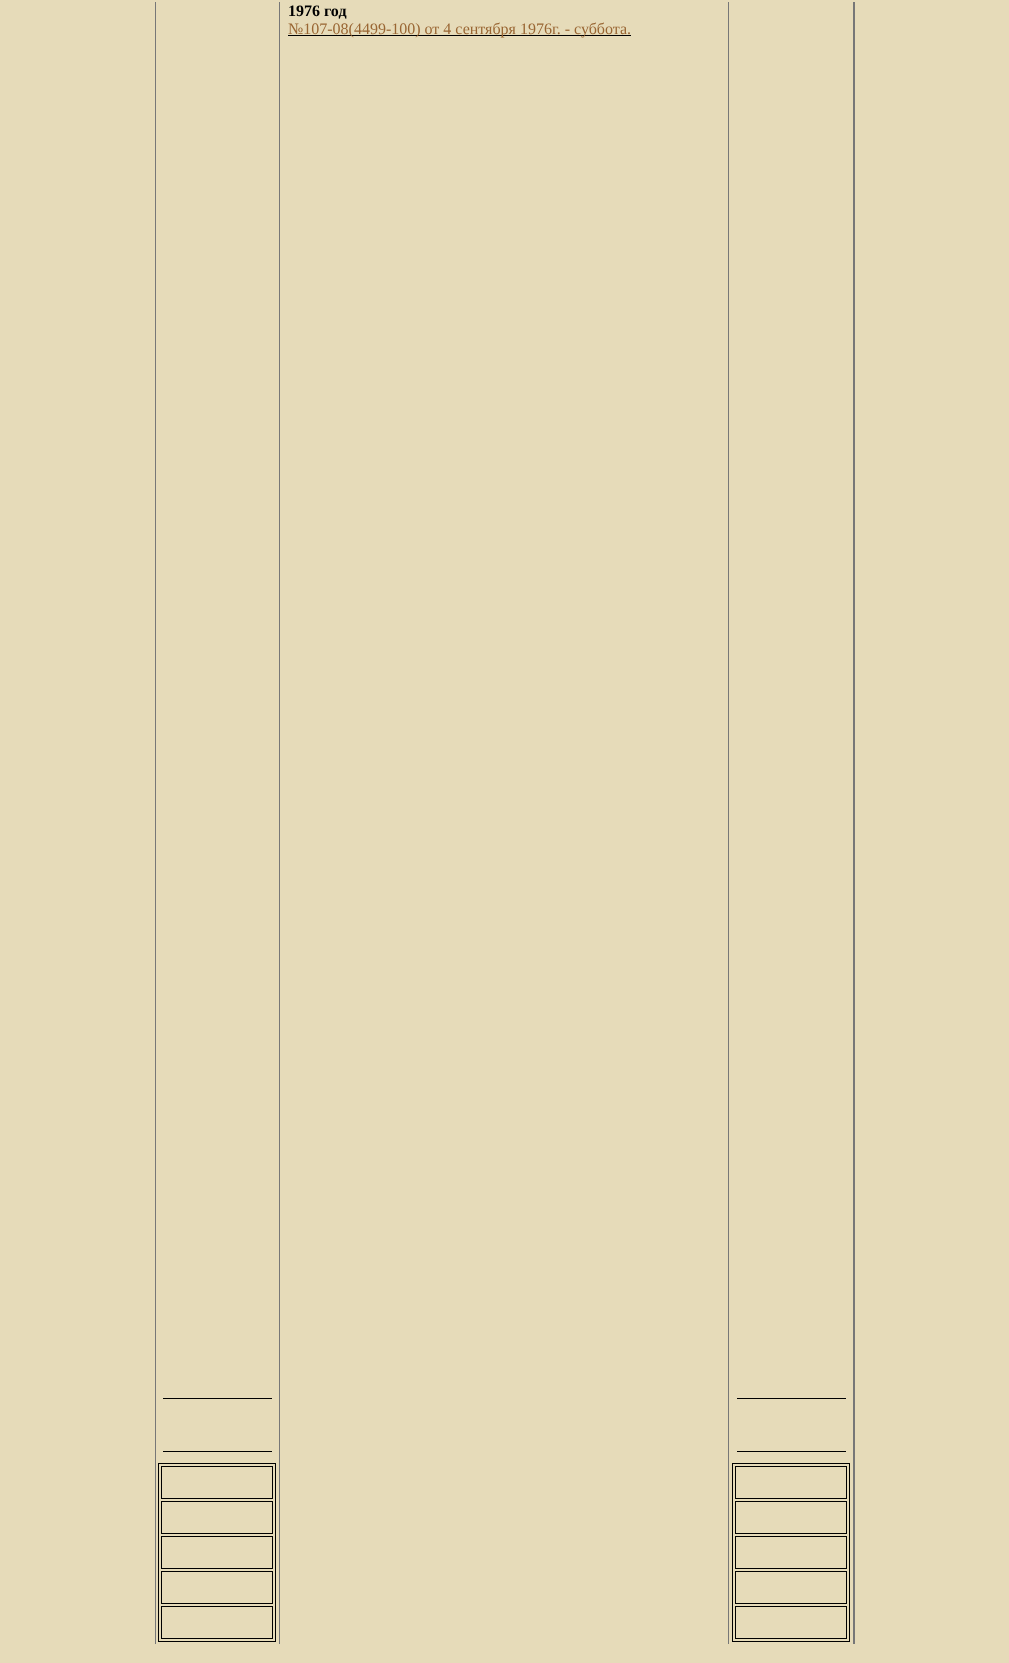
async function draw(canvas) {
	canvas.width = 1009;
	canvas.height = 1663;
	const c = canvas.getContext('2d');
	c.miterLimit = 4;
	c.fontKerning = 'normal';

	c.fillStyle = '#e6dbb9';
	c.fillRect(0, 0, 1009, 1663);
	c.fillStyle = '#777';
	c.fillRect(155, 2, 1, 1642);
	c.fillRect(279, 2, 1, 1642);
	c.font = 'bold 16px Liberation Serif';
	c.fillStyle = '#000';
	c.fillText('1976 год', 288, 16);
	c.fillRect(288, 35, 343, 1);
	c.font = '16px Liberation Serif';
	c.fillStyle = '#963';
	c.fillText('№107-08(4499-100) от 4 сентября 1976г. - суббота.', 288, 34);
	for (const [x, y, w, h, color] of [
		[728, 2, 1, 1642, '#777'],
		[853, 2, 2, 1642, '#777'],
		[163, 1398, 109, 1, '#000'],
		[163, 1451, 109, 1, '#000'],
	]) {
		c.fillStyle = color;
		c.fillRect(x, y, w, h);
	}
	c.strokeStyle = '#000';
	c.strokeRect(158.5, 1463.5, 117, 178);
	c.strokeRect(161.5, 1466.5, 111, 32);
	c.strokeRect(161.5, 1501.5, 111, 32);
	c.strokeRect(161.5, 1536.5, 111, 32);
	c.strokeRect(161.5, 1571.5, 111, 32);
	c.strokeRect(161.5, 1606.5, 111, 32);
	c.fillRect(737, 1398, 109, 1);
	c.fillRect(737, 1451, 109, 1);
	c.strokeRect(732.5, 1463.5, 117, 178);
	c.strokeRect(735.5, 1466.5, 111, 32);
	c.strokeRect(735.5, 1501.5, 111, 32);
	c.strokeRect(735.5, 1536.5, 111, 32);
	c.strokeRect(735.5, 1571.5, 111, 32);
	c.strokeRect(735.5, 1606.5, 111, 32);
}

draw(document.querySelector('canvas'));
